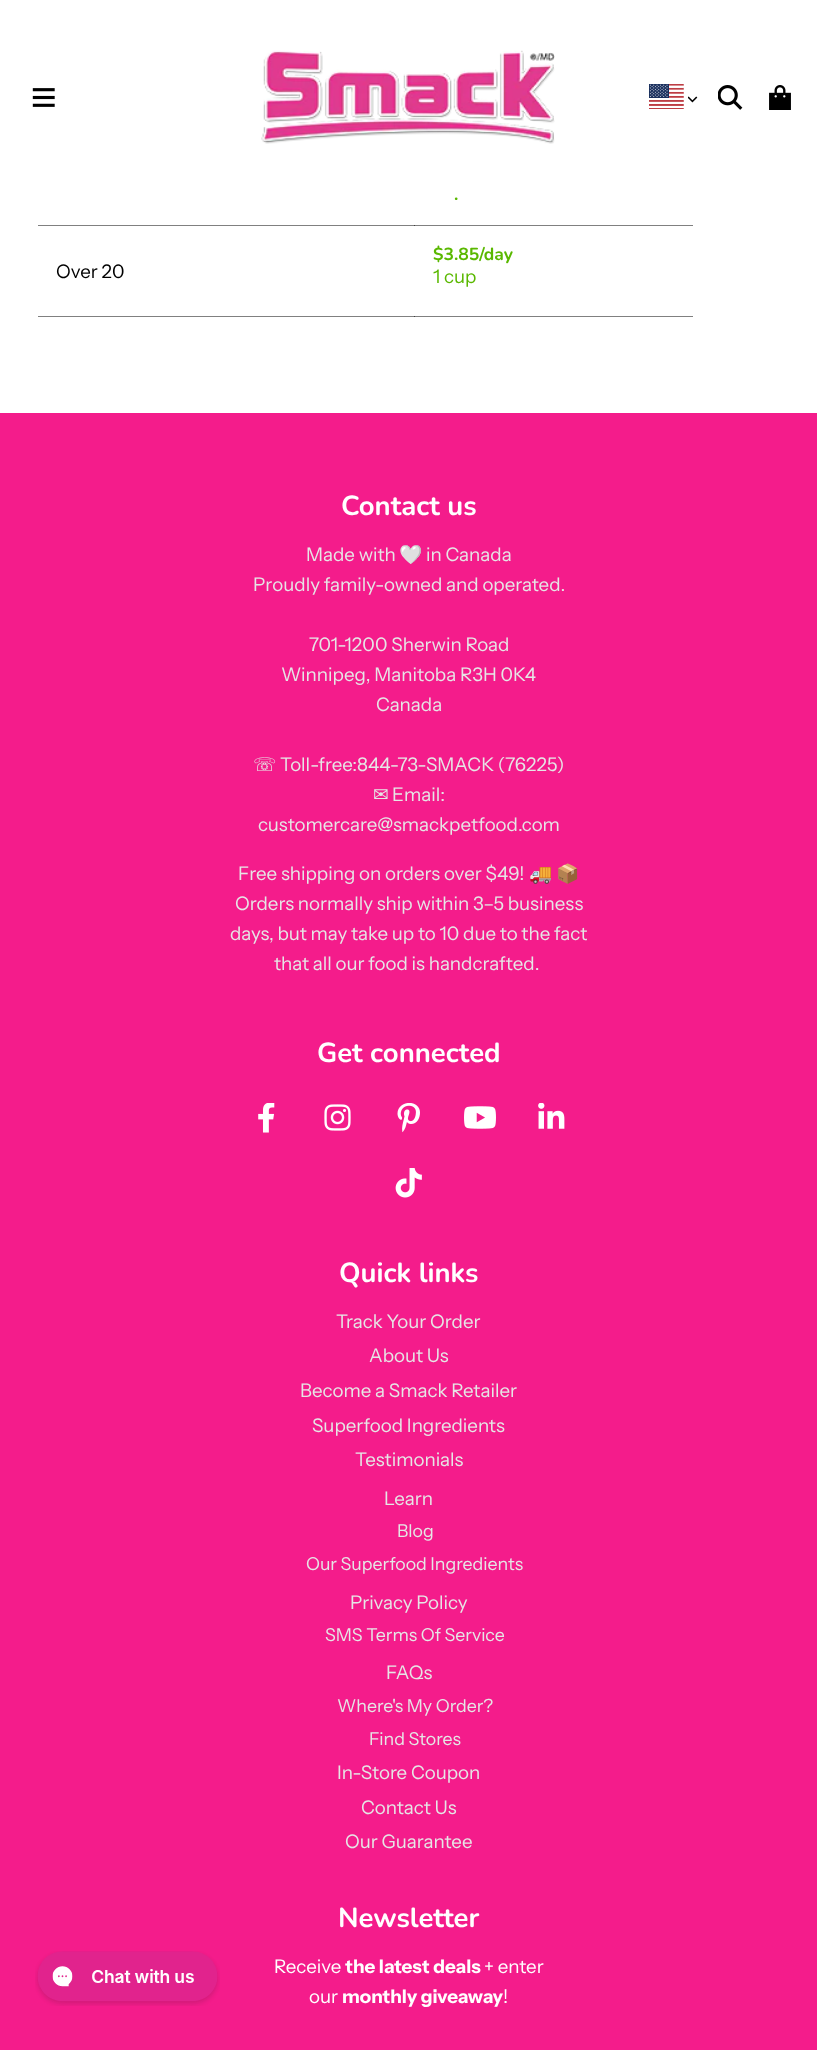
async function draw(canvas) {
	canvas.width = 817;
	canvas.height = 2050;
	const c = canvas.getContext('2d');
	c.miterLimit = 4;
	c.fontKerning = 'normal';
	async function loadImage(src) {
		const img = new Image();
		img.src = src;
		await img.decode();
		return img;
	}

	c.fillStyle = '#fff';
	c.fillRect(0, 0, 817, 2050);
	c.fillStyle = '#808080';
	c.fillRect(38, 225, 655, 1);
	c.fillRect(38, 316, 655, 1);
	c.drawImage(await loadImage('img1.png'), 32, 88, 23, 19);
	c.drawImage(await loadImage('img2.png'), 261, 50, 294, 94);
	c.drawImage(await loadImage('img3.png'), 649, 84, 35, 25);
	c.drawImage(await loadImage('img4.png'), 688, 96, 10, 7);
	c.drawImage(await loadImage('img5.png'), 718, 85, 25, 25);
	c.drawImage(await loadImage('img6.png'), 769, 85, 22, 25);
	c.fillStyle = '#404040';
	c.fillRect(414, 225, 1, 1);
	c.font = 'bold 17.5px Nunito';
	c.fillStyle = '#5ab800';
	c.fillText('.', 454, 200);
	c.font = '18.75px Instrument Sans';
	c.fillStyle = '#000';
	c.fillText('Over 20', 56, 278);
	c.fillStyle = '#404040';
	c.fillRect(414, 316, 1, 1);
	c.font = 'bold 17.5px Nunito';
	c.fillStyle = '#5ab800';
	c.fillText('$3.85/day', 433, 260);
	c.font = '18.75px Instrument Sans';
	c.fillText('1 cup', 433, 283);
	c.fillStyle = '#f41c8b';
	c.fillRect(0, 413, 817, 1637);
	c.drawImage(await loadImage('img7.png'), 35, 1951, 185, 55);
	c.font = 'bold 27.5px Nunito';
	c.fillStyle = '#fff';
	c.fillText('Contact us', 341, 515);
	c.font = '18.75px Instrument Sans';
	c.fillStyle = '#e6e6e6';
	c.fillText('Made with', 306, 561);
	c.font = '18.75px Noto Color Emoji';
	c.fillText('🤍', 399, 561);
	c.font = '18.75px Instrument Sans';
	for (const [text, x, y] of [
		['in Canada', 426, 561],
		['Proudly family-owned and operated.', 253, 591],
		['701-1200 Sherwin Road', 309, 651],
		['Winnipeg, Manitoba R3H 0K4', 281, 681],
		['Canada', 376, 711],
	]) {
		c.fillText(text, x, y);
	}
	c.font = '18.75px DejaVu Sans';
	c.fillText('☏', 253, 771);
	c.font = '18.75px Instrument Sans';
	c.fillText('Toll-free:844-73-SMACK (76225)', 280, 771);
	c.font = '18.75px DejaVu Sans';
	c.fillText('✉', 373, 801);
	c.font = '18.75px Instrument Sans';
	for (const [text, x, y] of [
		['Email:', 392, 801],
		['customercare@smackpetfood.com', 258, 831],
		['Free shipping on orders over $49!', 238, 880],
	]) {
		c.fillText(text, x, y);
	}
	c.font = '18.75px Noto Color Emoji';
	c.fillText('🚚', 529, 880);
	c.fillText('📦', 556, 880);
	c.font = '18.75px Instrument Sans';
	for (const [text, x, y] of [
		['Orders normally ship within 3–5 business', 235, 910],
		['days, but may take up to 10 due to the fact', 230, 940],
		['that all our food is handcrafted.', 274, 970],
	]) {
		c.fillText(text, x, y);
	}
	c.font = 'bold 27.5px Nunito';
	c.fillStyle = '#fff';
	c.fillText('Get connected', 317, 1062);
	c.drawImage(await loadImage('img8.png'), 258, 1103, 17, 30);
	c.drawImage(await loadImage('img9.png'), 324, 1104, 27, 27);
	c.drawImage(await loadImage('img10.png'), 397, 1103, 23, 30);
	c.drawImage(await loadImage('img11.png'), 464, 1106, 32, 23);
	c.drawImage(await loadImage('img12.png'), 538, 1103, 27, 26);
	c.drawImage(await loadImage('img13.png'), 395, 1168, 27, 30);
	c.fillText('Quick links', 339, 1282);
	c.font = '18.75px Instrument Sans';
	c.fillStyle = '#e6e6e6';
	for (const [text, x, y] of [
		['Track Your Order', 336, 1328],
		['About Us', 369, 1362],
		['Become a Smack Retailer', 300, 1397],
		['Superfood Ingredients', 312, 1432],
		['Testimonials', 355, 1466],
		['Learn', 384, 1505],
	]) {
		c.fillText(text, x, y);
	}
	c.font = '17.75px Instrument Sans';
	c.fillText('Blog', 397, 1537);
	c.fillText('Our Superfood Ingredients', 306, 1570);
	c.font = '18.75px Instrument Sans';
	c.fillText('Privacy Policy', 350, 1609);
	c.font = '17.75px Instrument Sans';
	c.fillText('SMS Terms Of Service', 325, 1641);
	c.font = '18.75px Instrument Sans';
	c.fillText('FAQs', 386, 1679);
	c.font = '17.75px Instrument Sans';
	c.fillText('Where\'s My Order?', 337, 1712);
	c.fillText('Find Stores', 369, 1745);
	c.font = '18.75px Instrument Sans';
	for (const [text, x, y] of [
		['In-Store Coupon', 337, 1779],
		['Contact Us', 361, 1814],
		['Our Guarantee', 345, 1848],
	]) {
		c.fillText(text, x, y);
	}
	c.font = 'bold 27.5px Nunito';
	c.fillStyle = '#fff';
	c.fillText('Newsletter', 338, 1927);
	c.font = '18.75px Instrument Sans';
	c.fillText('Receive', 274, 1973);
	c.font = 'bold 18.75px Instrument Sans';
	c.fillText('the latest deals', 345, 1973);
	c.font = '18.75px Instrument Sans';
	c.fillText('+ enter', 484, 1973);
	c.fillText('our', 309, 2003);
	c.font = 'bold 18.75px Instrument Sans';
	c.fillText('monthly giveaway', 342, 2003);
	c.font = '18.75px Instrument Sans';
	c.fillText('!', 503, 2003);
}

draw(document.querySelector('canvas'));
